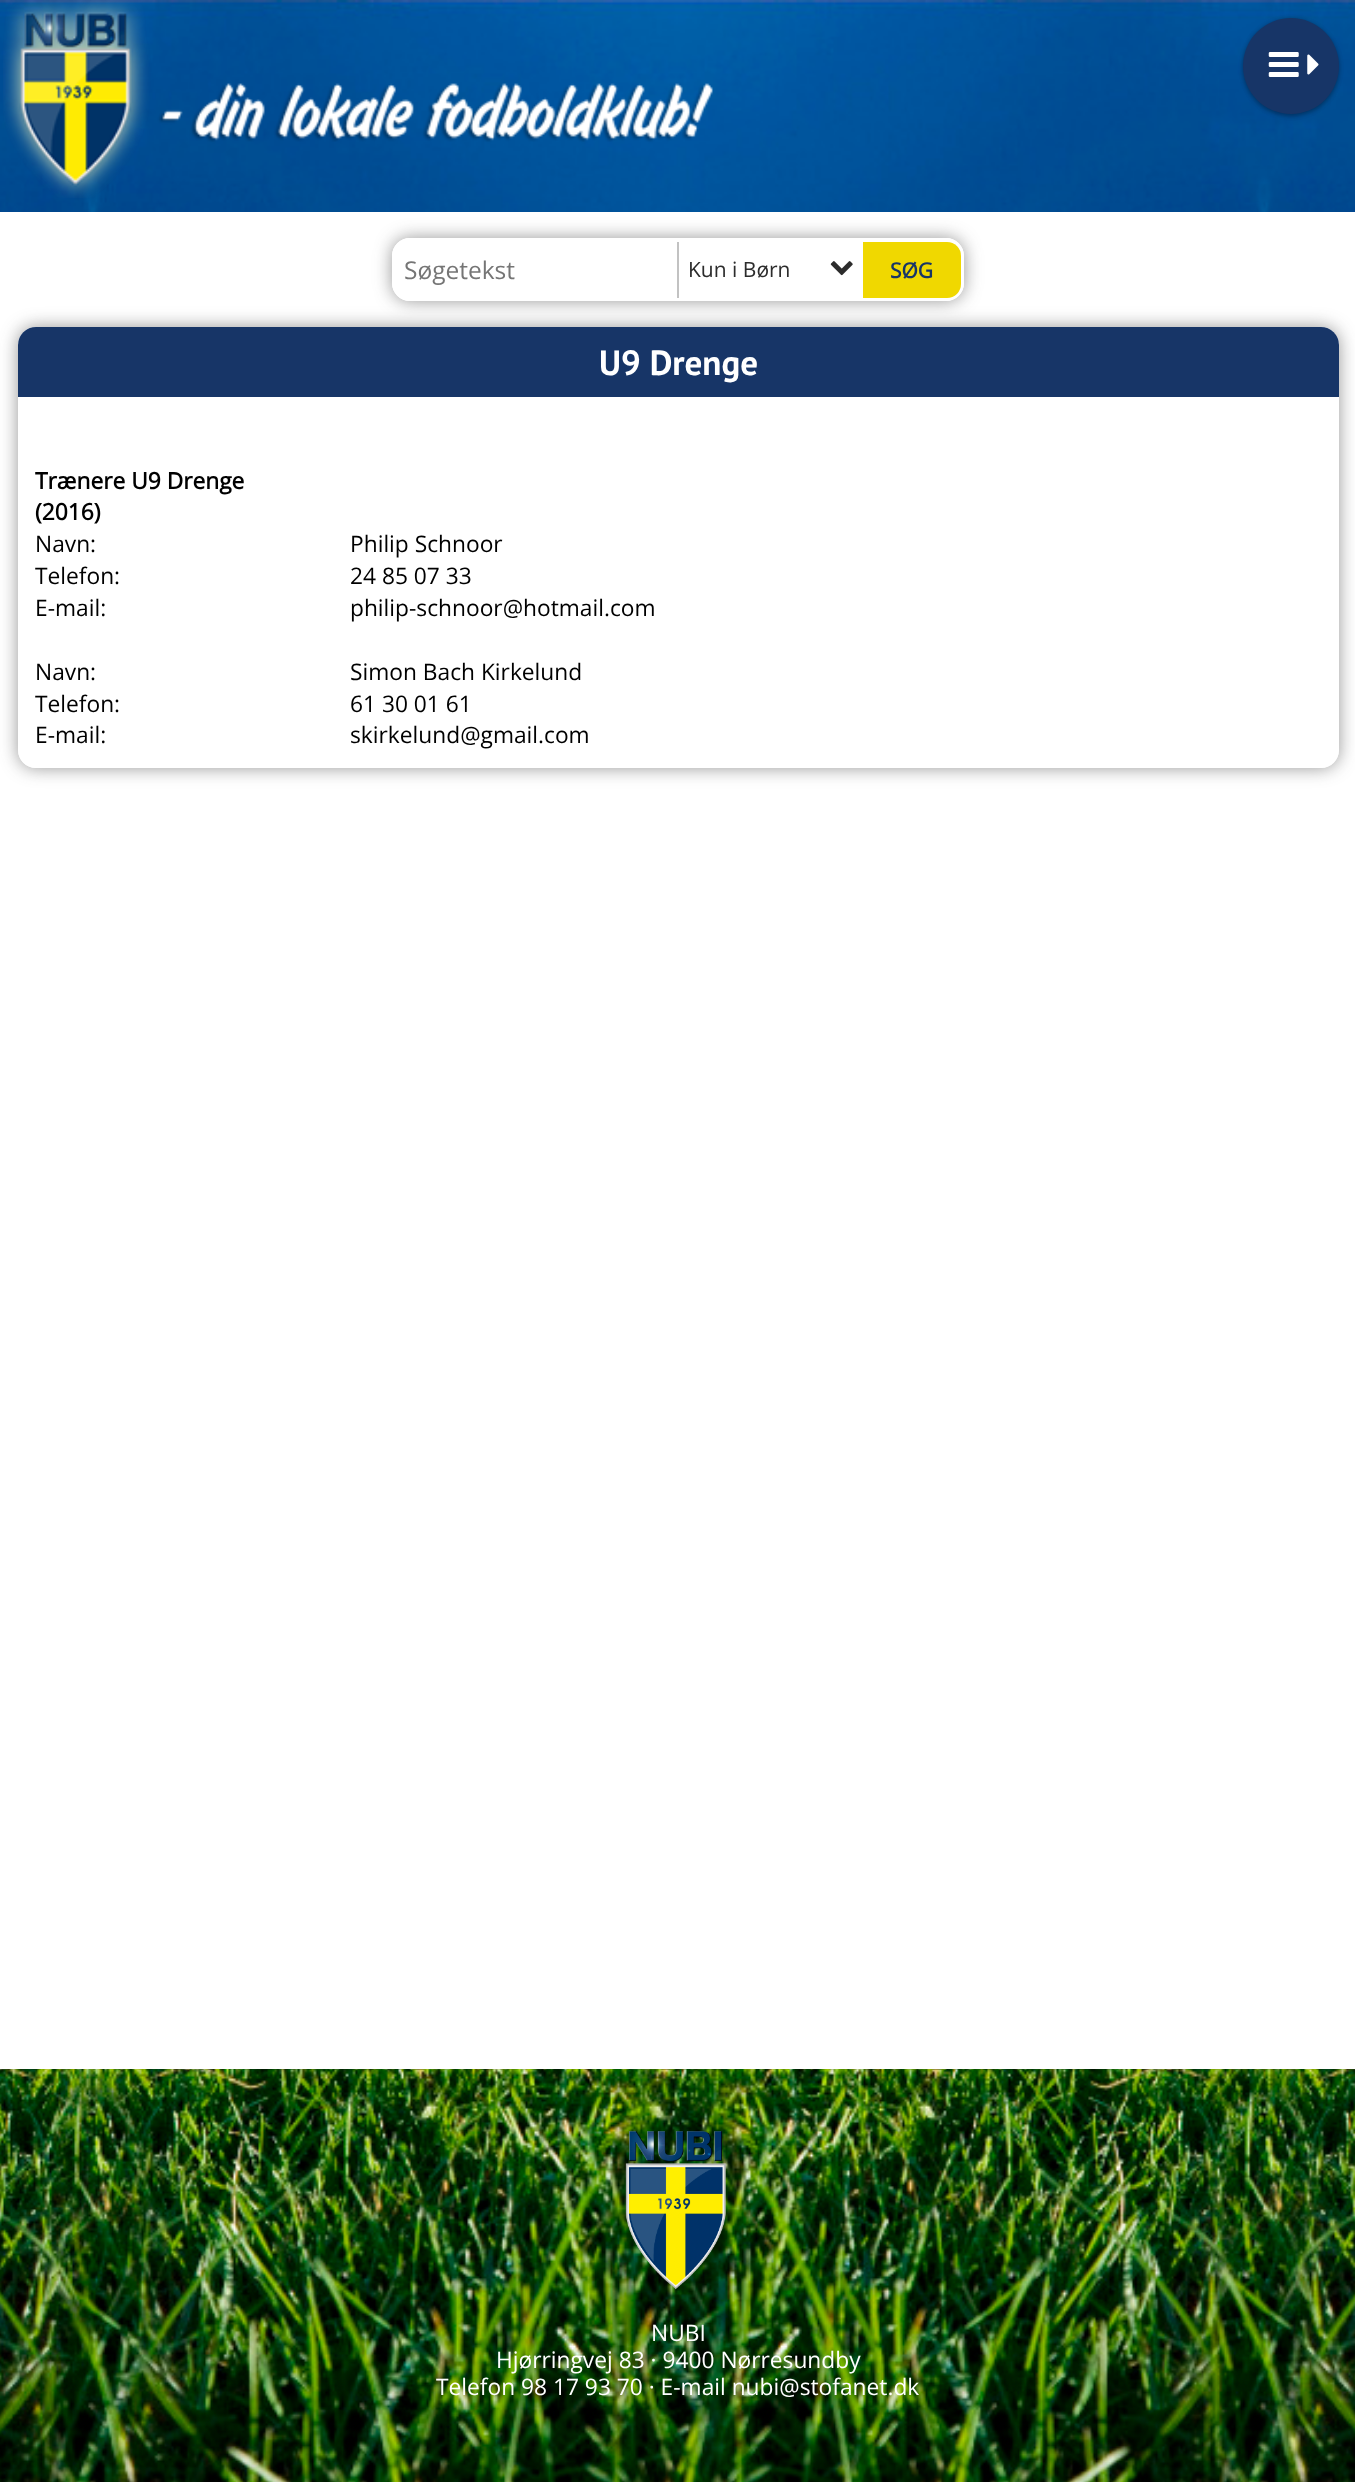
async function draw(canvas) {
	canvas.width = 1355;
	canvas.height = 2482;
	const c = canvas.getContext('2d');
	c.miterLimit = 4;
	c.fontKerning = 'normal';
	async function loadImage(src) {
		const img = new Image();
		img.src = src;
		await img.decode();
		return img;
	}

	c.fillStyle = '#fff';
	c.fillRect(0, 0, 1355, 2482);
	c.drawImage(await loadImage('img1.png'), 0, 0, 1355, 2482);
	c.drawImage(await loadImage('img2.png'), 3, 0, 710, 198);
	c.fillStyle = '#0000003d';
	c.filter = 'blur(2px)';
	c.beginPath();
	c.roundRect(1243, 19, 96, 97, 48);
	c.fill();
	c.filter = 'none';
	c.fillStyle = '#0000001f';
	c.filter = 'blur(2.5px)';
	c.beginPath();
	c.roundRect(1243, 19, 96, 97, 48);
	c.fill();
	c.filter = 'none';
	c.fillStyle = '#173567';
	c.beginPath();
	c.arc(1291, 66, 48, 0, 2 * Math.PI);
	c.fill();
	c.drawImage(await loadImage('img3.png'), 1268, 52, 31, 25);
	c.drawImage(await loadImage('img4.png'), 1307, 54, 12, 21);
	c.fillStyle = '#fff';
	c.fillRect(0, 212, 1355, 1857);
	c.save();
	c.beginPath();
	c.moveTo(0, 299);
	c.lineTo(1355, 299);
	c.lineTo(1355, 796);
	c.lineTo(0, 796);
	c.closePath();
	c.moveTo(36, 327);
	c.lineTo(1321, 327);
	c.bezierCurveTo(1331, 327, 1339, 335, 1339, 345);
	c.lineTo(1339, 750);
	c.bezierCurveTo(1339, 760, 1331, 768, 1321, 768);
	c.lineTo(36, 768);
	c.bezierCurveTo(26, 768, 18, 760, 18, 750);
	c.lineTo(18, 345);
	c.bezierCurveTo(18, 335, 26, 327, 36, 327);
	c.closePath();
	c.clip('evenodd');
	c.fillStyle = '#30303080';
	c.filter = 'blur(9px)';
	c.beginPath();
	c.roundRect(18, 327, 1321, 441, 18);
	c.fill();
	c.filter = 'none';
	c.restore();
	c.fillStyle = '#ffffffcc';
	c.beginPath();
	c.roundRect(18, 327, 1321, 441, 18);
	c.fill();
	c.fillStyle = '#173567';
	c.beginPath();
	c.roundRect(18, 327, 1321, 70, [18, 18, 0, 0]);
	c.fill();
	c.save();
	c.beginPath();
	c.moveTo(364, 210);
	c.lineTo(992, 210);
	c.lineTo(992, 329);
	c.lineTo(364, 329);
	c.closePath();
	c.moveTo(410, 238);
	c.lineTo(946, 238);
	c.bezierCurveTo(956, 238, 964, 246, 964, 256);
	c.lineTo(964, 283);
	c.bezierCurveTo(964, 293, 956, 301, 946, 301);
	c.lineTo(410, 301);
	c.bezierCurveTo(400, 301, 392, 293, 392, 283);
	c.lineTo(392, 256);
	c.bezierCurveTo(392, 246, 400, 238, 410, 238);
	c.closePath();
	c.clip('evenodd');
	c.fillStyle = '#30303080';
	c.filter = 'blur(9px)';
	c.beginPath();
	c.roundRect(392, 238, 572, 63, 18);
	c.fill();
	c.filter = 'none';
	c.restore();
	c.beginPath();
	c.roundRect(394, 240, 568, 59, 16);
	c.strokeStyle = '#fff';
	c.lineWidth = 4;
	c.stroke();
	c.font = '24.5px Open Sans';
	c.fillStyle = '#757575';
	c.fillText('Søgetekst', 404, 279);
	c.fillStyle = '#c2c2c2';
	c.fillRect(677, 242, 2, 56);
	c.font = '21px Open Sans';
	c.fillStyle = '#2c2c2c';
	c.fillText('Kun i Børn', 688, 277);
	c.drawImage(await loadImage('img5.png'), 830, 261, 23, 15);
	c.fillStyle = '#f0d800';
	c.beginPath();
	c.roundRect(863, 242, 98, 56, [0, 14, 14, 0]);
	c.fill();
	c.font = 'bold 21px Open Sans';
	c.fillStyle = '#173567';
	c.fillText('SØG', 890, 278);
	c.font = 'bold 35px PT Sans';
	c.fillStyle = '#fff';
	c.fillText('U9 Drenge', 599, 375);
	c.font = 'bold 22.75px Open Sans';
	c.fillStyle = '#000';
	c.fillText('Trænere U9 Drenge', 35, 489);
	c.fillText('(2016)', 35, 520);
	c.font = '22.75px Open Sans';
	for (const [text, x, y] of [
		['Navn:', 35, 552],
		['Philip Schnoor', 350, 552],
		['Telefon:', 35, 584],
		['24 85 07 33', 350, 584],
		['E-mail:', 35, 616],
		['philip-schnoor@hotmail.com', 350, 616],
		['Navn:', 35, 680],
		['Simon Bach Kirkelund', 350, 680],
		['Telefon:', 35, 712],
		['61 30 01 61', 350, 712],
		['E-mail:', 35, 743],
		['skirkelund@gmail.com', 350, 743],
	]) {
		c.fillText(text, x, y);
	}
	c.drawImage(await loadImage('img6.png'), 625, 2131, 101, 159);
	c.fillStyle = '#fff';
	for (const [text, x, y] of [
		['NUBI', 651, 2341],
		['Hjørringvej 83 · 9400 Nørresundby', 496, 2368],
		['Telefon 98 17 93 70 · E-mail nubi@stofanet.dk', 436, 2395],
	]) {
		c.fillText(text, x, y);
	}
}

draw(document.querySelector('canvas'));
